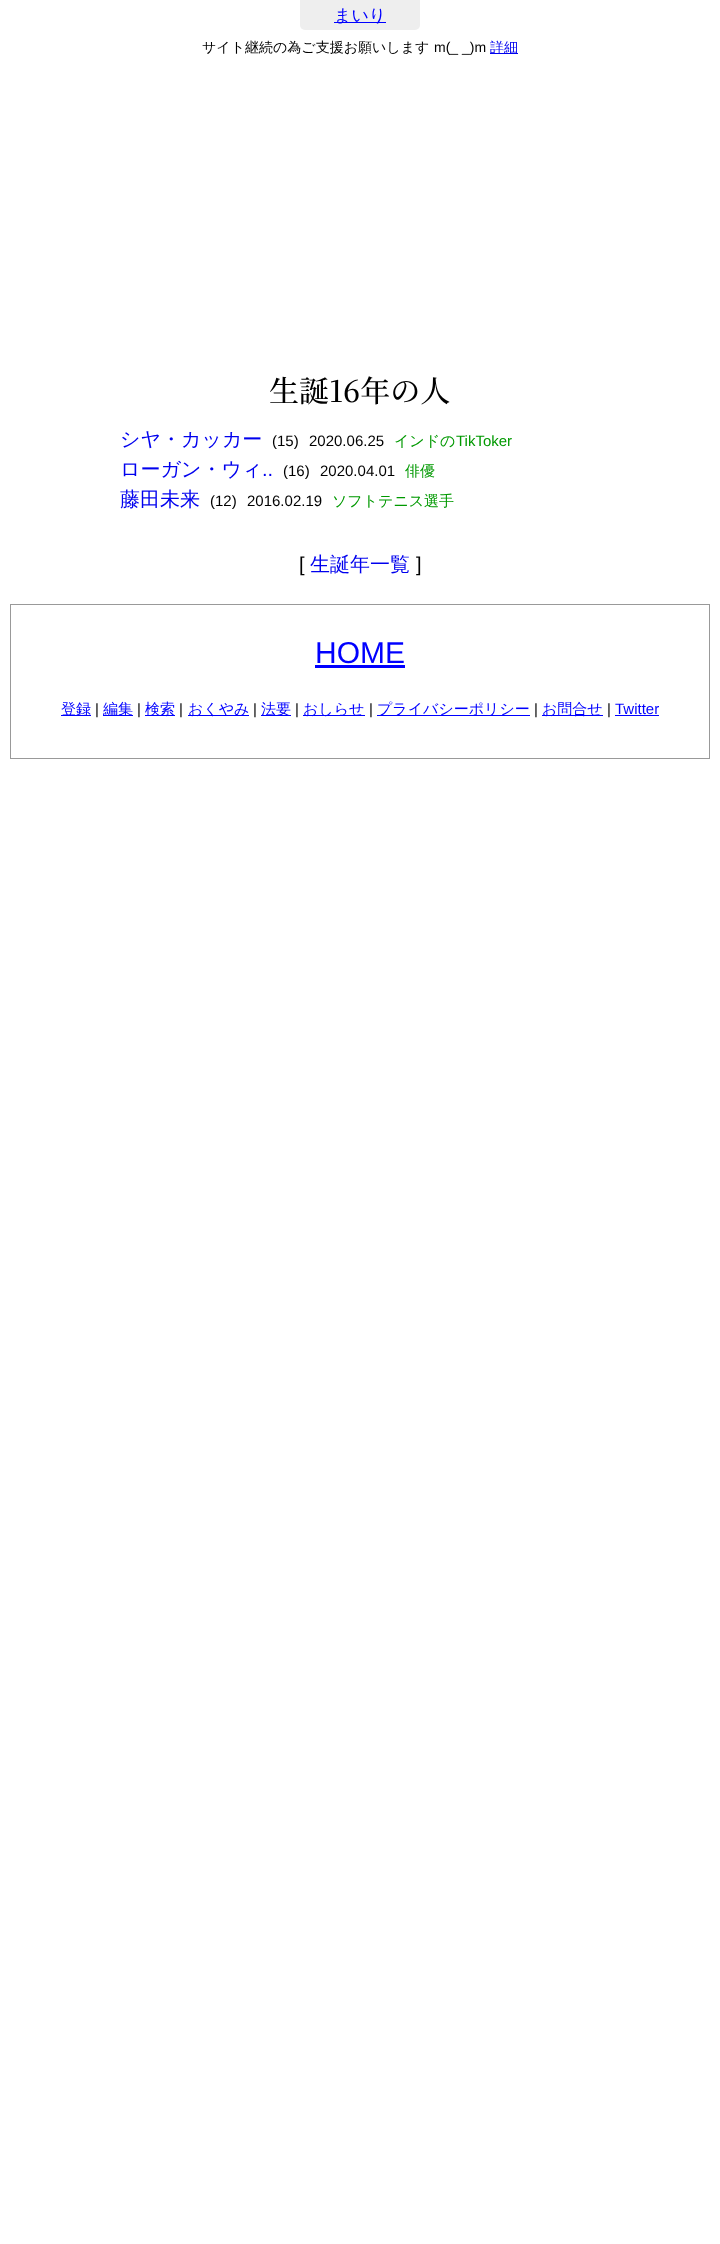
async function draw(canvas) {
	canvas.width = 720;
	canvas.height = 2244;
	const c = canvas.getContext('2d');
	c.miterLimit = 4;
	c.fontKerning = 'normal';

	c.fillStyle = '#fff';
	c.fillRect(0, 0, 720, 2244);
	c.fillStyle = '#eee';
	c.beginPath();
	c.roundRect(300, 0, 120, 30, [0, 0, 5, 5]);
	c.fill();
	c.fillStyle = '#00f';
	c.fillRect(334, 22, 52, 1);
	c.font = '500 17px WenQuanYi Zen Hei';
	c.fillText('まいり', 334, 21);
	c.font = '500 14px WenQuanYi Zen Hei';
	c.fillStyle = '#000';
	c.fillText('サイト継続の為ご支援お願いします', 202, 52);
	c.font = '14px Liberation Sans';
	c.fillText('m(_ _)m', 434, 52);
	c.fillStyle = '#00e';
	c.fillRect(490, 53, 28, 1);
	c.font = '500 14px WenQuanYi Zen Hei';
	c.fillText('詳細', 490, 52);
	c.font = '200 30px Noto Serif JP';
	c.fillStyle = '#000';
	c.fillText('生誕16年の人', 269, 402);
	c.font = '500 20px WenQuanYi Zen Hei';
	c.fillStyle = '#00e';
	c.fillText('シヤ・カッカー', 120, 446);
	c.font = '15px Liberation Sans';
	c.fillStyle = '#000';
	c.fillText('(15)', 272, 446);
	c.fillText('2020.06.25', 309, 446);
	c.font = '500 15px WenQuanYi Zen Hei';
	c.fillStyle = '#090';
	c.fillText('インドの', 394, 446);
	c.font = '15px Liberation Sans';
	c.fillText('TikToker', 456, 446);
	c.font = '500 20px WenQuanYi Zen Hei';
	c.fillStyle = '#00e';
	c.fillText('ローガン・ウィ', 120, 476);
	c.font = '20px Liberation Sans';
	c.fillText('..', 262, 476);
	c.font = '15px Liberation Sans';
	c.fillStyle = '#000';
	c.fillText('(16)', 283, 476);
	c.fillText('2020.04.01', 320, 476);
	c.font = '500 15px WenQuanYi Zen Hei';
	c.fillStyle = '#090';
	c.fillText('俳優', 405, 476);
	c.font = '500 20px WenQuanYi Zen Hei';
	c.fillStyle = '#00e';
	c.fillText('藤田未来', 120, 506);
	c.font = '15px Liberation Sans';
	c.fillStyle = '#000';
	c.fillText('(12)', 210, 506);
	c.fillText('2016.02.19', 247, 506);
	c.font = '500 15px WenQuanYi Zen Hei';
	c.fillStyle = '#090';
	c.fillText('ソフトテニス選手', 332, 506);
	c.font = '20px Liberation Sans';
	c.fillStyle = '#000';
	c.fillText('[', 299, 571);
	c.font = '500 20px WenQuanYi Zen Hei';
	c.fillStyle = '#00e';
	c.fillText('生誕年一覧', 310, 571);
	c.font = '20px Liberation Sans';
	c.fillStyle = '#000';
	c.fillText(']', 416, 571);
	c.strokeStyle = '#999';
	c.strokeRect(10.5, 604.5, 699, 154);
	c.font = '30px Liberation Sans';
	c.fillStyle = '#00f';
	c.fillText('HOME', 315, 663);
	c.fillRect(315, 665, 90, 3);
	c.fillRect(61, 715, 30, 1);
	c.font = '500 15px WenQuanYi Zen Hei';
	c.fillText('登録', 61, 714);
	c.font = '15px Liberation Sans';
	c.fillStyle = '#000';
	c.fillText('|', 95, 714);
	c.fillStyle = '#00f';
	c.fillRect(103, 715, 30, 1);
	c.font = '500 15px WenQuanYi Zen Hei';
	c.fillText('編集', 103, 714);
	c.font = '15px Liberation Sans';
	c.fillStyle = '#000';
	c.fillText('|', 137, 714);
	c.fillStyle = '#00f';
	c.fillRect(145, 715, 30, 1);
	c.font = '500 15px WenQuanYi Zen Hei';
	c.fillText('検索', 145, 714);
	c.font = '15px Liberation Sans';
	c.fillStyle = '#000';
	c.fillText('|', 179, 714);
	c.fillStyle = '#00f';
	c.fillRect(188, 715, 61, 1);
	c.font = '500 15px WenQuanYi Zen Hei';
	c.fillText('おくやみ', 188, 714);
	c.font = '15px Liberation Sans';
	c.fillStyle = '#000';
	c.fillText('|', 253, 714);
	c.fillStyle = '#00f';
	c.fillRect(261, 715, 30, 1);
	c.font = '500 15px WenQuanYi Zen Hei';
	c.fillText('法要', 261, 714);
	c.font = '15px Liberation Sans';
	c.fillStyle = '#000';
	c.fillText('|', 295, 714);
	c.fillStyle = '#00f';
	c.fillRect(303, 715, 62, 1);
	c.font = '500 15px WenQuanYi Zen Hei';
	c.fillText('おしらせ', 303, 714);
	c.font = '15px Liberation Sans';
	c.fillStyle = '#000';
	c.fillText('|', 369, 714);
	c.fillStyle = '#00f';
	c.fillRect(377, 715, 153, 1);
	c.font = '500 15px WenQuanYi Zen Hei';
	c.fillText('プライバシーポリシー', 377, 714);
	c.font = '15px Liberation Sans';
	c.fillStyle = '#000';
	c.fillText('|', 534, 714);
	c.fillStyle = '#00f';
	c.fillRect(542, 715, 61, 1);
	c.font = '500 15px WenQuanYi Zen Hei';
	c.fillText('お問合せ', 542, 714);
	c.font = '15px Liberation Sans';
	c.fillStyle = '#000';
	c.fillText('|', 607, 714);
	c.fillStyle = '#00f';
	c.fillText('Twitter', 615, 714);
	c.fillRect(615, 715, 44, 1);
}

draw(document.querySelector('canvas'));
